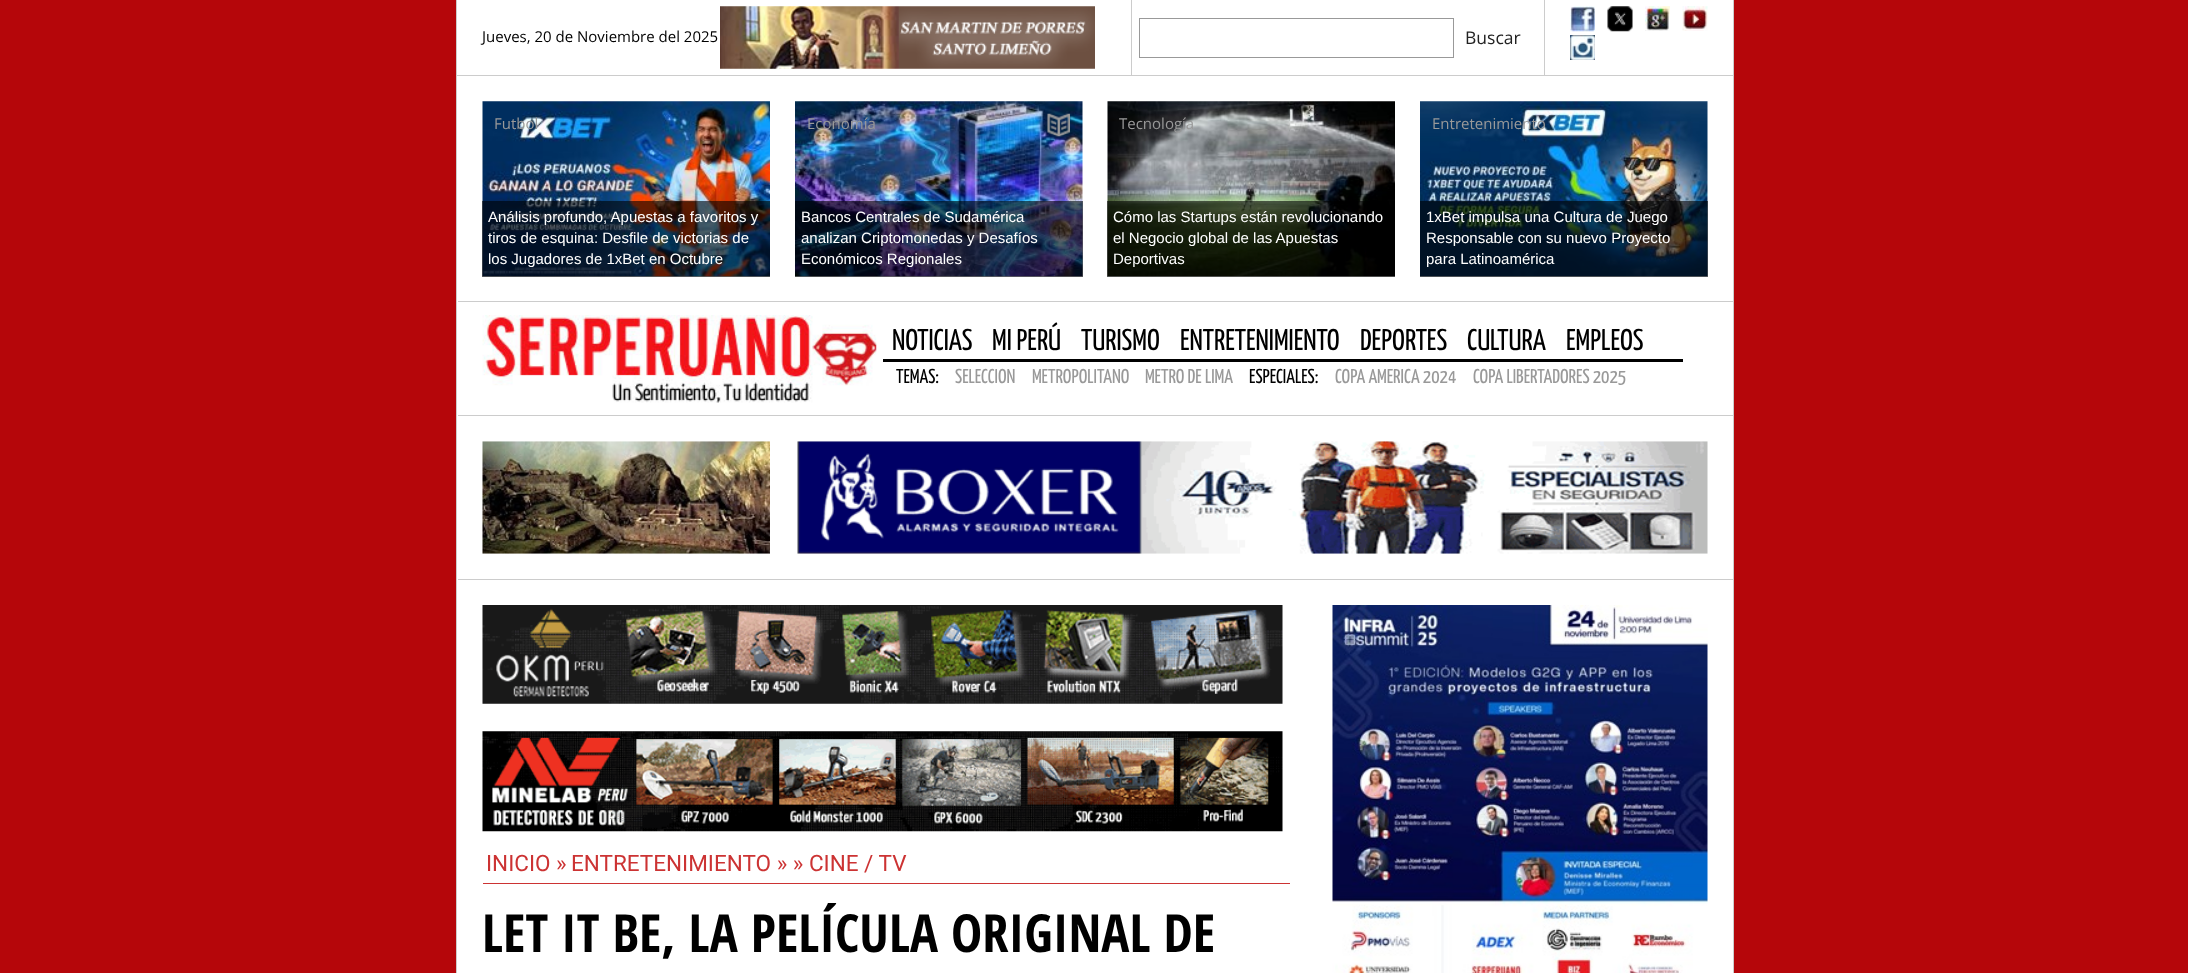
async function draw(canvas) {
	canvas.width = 2188;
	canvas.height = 973;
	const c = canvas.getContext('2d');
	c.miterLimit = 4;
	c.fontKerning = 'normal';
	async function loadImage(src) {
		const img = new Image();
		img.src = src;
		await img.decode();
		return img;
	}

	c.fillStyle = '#b5060a';
	c.fillRect(0, 0, 2188, 973);
	for (const [x, y, w, h, color] of [
		[457, 0, 1276, 75, '#fff'],
		[1733, 0, 1, 973, '#ccc'],
		[456, 75, 1278, 1, '#ccc'],
		[456, 0, 1, 973, '#ccc'],
		[1131, 0, 1, 75, '#ccc'],
	]) {
		c.fillStyle = color;
		c.fillRect(x, y, w, h);
	}
	c.font = '15px Open Sans';
	c.fillStyle = '#000';
	c.fillText('Jueves, 20 de Noviembre del 2025', 482, 42);
	c.drawImage(await loadImage('img1.png'), 720, 6, 375, 63);
	c.fillStyle = '#ccc';
	c.fillRect(1544, 0, 1, 75);
	c.strokeStyle = '#999';
	c.strokeRect(1139.5, 18.5, 314, 39);
	c.font = '17.5px Open Sans';
	c.fillStyle = '#222';
	c.fillText('Buscar', 1465, 44);
	c.drawImage(await loadImage('img2.png'), 1570, 6, 25, 26);
	c.drawImage(await loadImage('img3.png'), 1607, 6, 26, 26);
	c.drawImage(await loadImage('img4.png'), 1645, 6, 25, 25);
	c.drawImage(await loadImage('img5.png'), 1682, 6, 26, 25);
	c.drawImage(await loadImage('img6.png'), 1570, 35, 25, 25);
	c.fillStyle = '#fff';
	c.fillRect(457, 76, 1276, 897);
	c.drawImage(await loadImage('img7.png'), 482, 101, 288, 176);
	c.font = '15px Open Sans';
	c.fillStyle = '#999';
	c.fillText('Futbol', 494, 129);
	c.fillStyle = '#00000099';
	c.fillRect(482, 201, 288, 76);
	c.font = '15px Liberation Sans';
	c.fillStyle = '#fff';
	for (const [text, x, y] of [
		['Análisis profundo, Apuestas a favoritos y', 488, 222],
		['tiros de esquina: Desfile de victorias de', 488, 243],
		['los Jugadores de 1xBet en Octubre', 488, 264],
	]) {
		c.fillText(text, x, y);
	}
	c.drawImage(await loadImage('img8.png'), 795, 101, 288, 176);
	c.font = '15px Open Sans';
	c.fillStyle = '#999';
	c.fillText('Economía', 807, 129);
	c.drawImage(await loadImage('img9.png'), 1047, 113, 23, 24);
	c.fillStyle = '#00000099';
	c.fillRect(795, 201, 288, 76);
	c.font = '15px Liberation Sans';
	c.fillStyle = '#fff';
	for (const [text, x, y] of [
		['Bancos Centrales de Sudamérica', 801, 222],
		['analizan Criptomonedas y Desafíos', 801, 243],
		['Económicos Regionales', 801, 264],
	]) {
		c.fillText(text, x, y);
	}
	c.drawImage(await loadImage('img10.png'), 1107, 101, 288, 176);
	c.font = '15px Open Sans';
	c.fillStyle = '#999';
	c.fillText('Tecnología', 1119, 129);
	c.fillStyle = '#00000099';
	c.fillRect(1107, 201, 288, 76);
	c.font = '15px Liberation Sans';
	c.fillStyle = '#fff';
	for (const [text, x, y] of [
		['Cómo las Startups están revolucionando', 1113, 222],
		['el Negocio global de las Apuestas', 1113, 243],
		['Deportivas', 1113, 264],
	]) {
		c.fillText(text, x, y);
	}
	c.drawImage(await loadImage('img11.png'), 1420, 101, 288, 176);
	c.font = '15px Open Sans';
	c.fillStyle = '#999';
	c.fillText('Entretenimiento', 1432, 129);
	c.fillStyle = '#00000099';
	c.fillRect(1420, 201, 288, 76);
	c.font = '15px Liberation Sans';
	c.fillStyle = '#fff';
	for (const [text, x, y] of [
		['1xBet impulsa una Cultura de Juego', 1426, 222],
		['Responsable con su nuevo Proyecto', 1426, 243],
		['para Latinoamérica', 1426, 264],
	]) {
		c.fillText(text, x, y);
	}
	c.fillStyle = '#ccc';
	c.fillRect(458, 301, 1275, 1);
	c.fillRect(458, 415, 1275, 1);
	c.drawImage(await loadImage('img12.png'), 482, 315, 395, 88);
	c.fillStyle = '#000';
	c.fillRect(883, 359, 800, 3);
	c.font = '30px Yanone Kaffeesatz';
	for (const [text, x, y] of [
		['NOTICIAS', 892, 350],
		['MI PERÚ', 992, 350],
		['TURISMO', 1081, 350],
		['ENTRETENIMIENTO', 1180, 350],
		['DEPORTES', 1360, 350],
		['CULTURA', 1467, 350],
		['EMPLEOS', 1566, 350],
	]) {
		c.fillText(text, x, y);
	}
	c.font = '20px Yanone Kaffeesatz';
	c.fillText('TEMAS:', 896, 383);
	c.fillStyle = '#999';
	for (const [text, x, y] of [
		['SELECCION', 955, 383],
		['METROPOLITANO', 1032, 383],
		['METRO DE LIMA', 1145, 383],
	]) {
		c.fillText(text, x, y);
	}
	c.fillStyle = '#000';
	c.fillText('ESPECIALES:', 1249, 383);
	c.fillStyle = '#999';
	c.fillText('COPA AMERICA 2024', 1335, 383);
	c.fillText('COPA LIBERTADORES 2025', 1473, 383);
	c.drawImage(await loadImage('img13.png'), 482, 441, 288, 113);
	c.drawImage(await loadImage('img14.png'), 797, 441, 911, 113);
	c.fillStyle = '#ccc';
	c.fillRect(458, 579, 1275, 1);
	c.drawImage(await loadImage('img15.png'), 482, 605, 801, 99);
	c.drawImage(await loadImage('img16.png'), 482, 731, 801, 101);
	c.fillStyle = '#c33';
	c.fillRect(483, 883, 807, 1);
	c.font = '22.5px Roboto';
	c.fillText('INICIO »', 486, 871);
	c.fillText('ENTRETENIMIENTO » » CINE / TV', 571, 871);
	c.font = 'bold 52.5px Open Sans Condensed';
	c.fillStyle = '#000';
	c.fillText('LET IT BE, LA PELÍCULA ORIGINAL DE', 482, 952);
	c.drawImage(await loadImage('img17.png'), 1332, 605, 376, 368);
}

draw(document.querySelector('canvas'));
